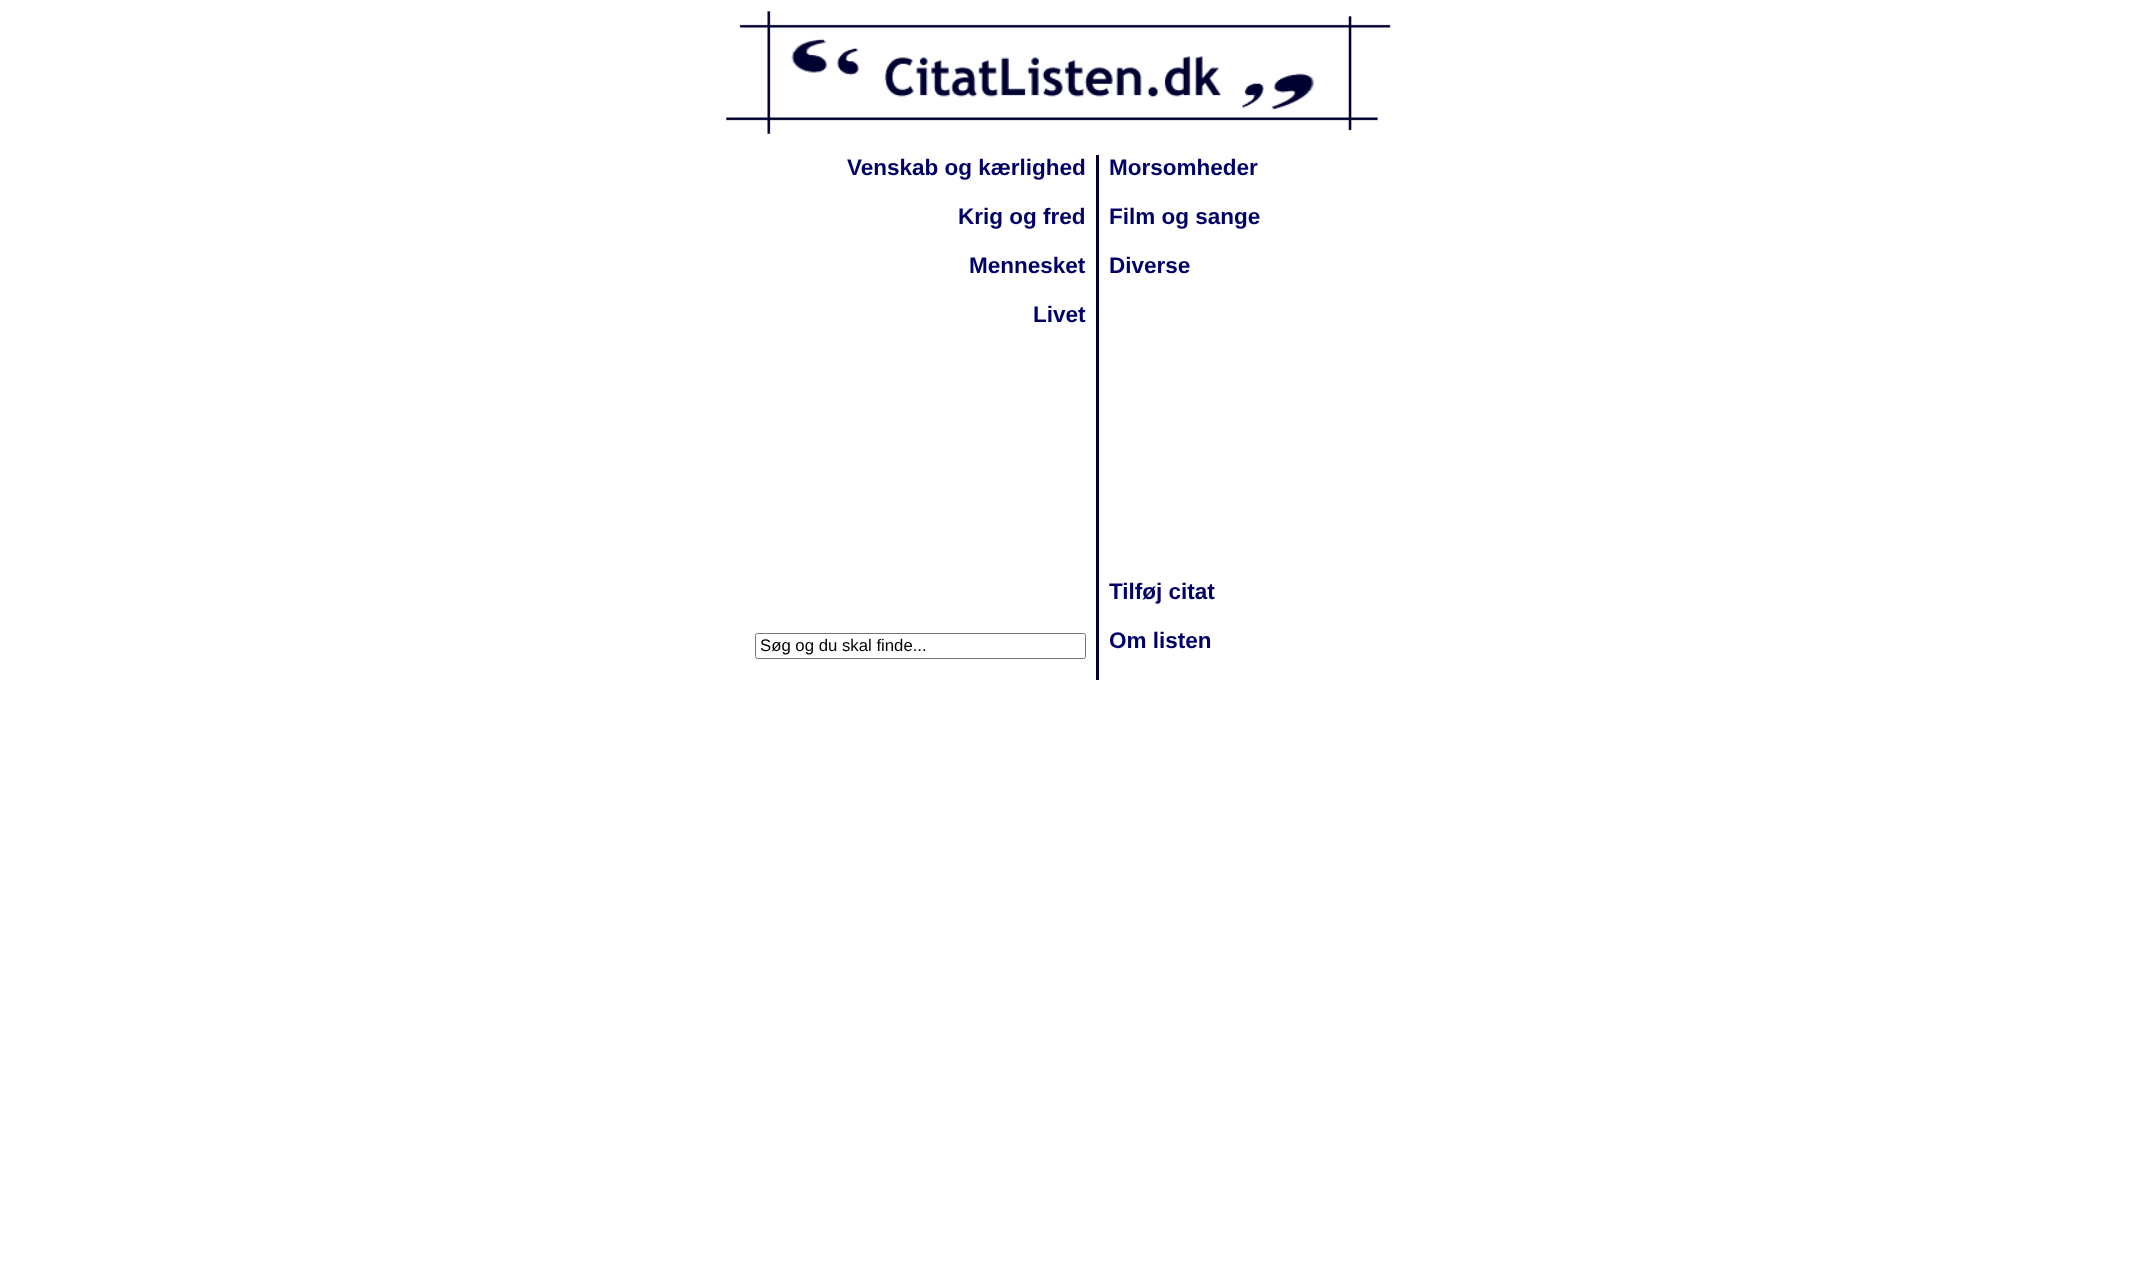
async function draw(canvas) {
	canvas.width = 2142;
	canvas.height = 1261;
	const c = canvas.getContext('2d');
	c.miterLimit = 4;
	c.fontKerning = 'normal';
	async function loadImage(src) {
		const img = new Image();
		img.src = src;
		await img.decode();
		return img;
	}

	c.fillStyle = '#fff';
	c.fillRect(0, 0, 2142, 1261);
	c.drawImage(await loadImage('img1.png'), 726, 11, 665, 123);
	c.font = 'bold 22.5px Liberation Sans';
	c.fillStyle = '#006';
	for (const [text, x, y] of [
		['Venskab og kærlighed', 847, 175],
		['Krig og fred', 958, 224],
		['Mennesket', 969, 273],
		['Livet', 1033, 322],
	]) {
		c.fillText(text, x, y);
	}
	c.fillStyle = '#003';
	c.fillRect(1096, 155, 3, 525);
	c.fillStyle = '#006';
	for (const [text, x, y] of [
		['Morsomheder', 1109, 175],
		['Film og sange', 1109, 224],
		['Diverse', 1109, 273],
	]) {
		c.fillText(text, x, y);
	}
	c.beginPath();
	c.roundRect(755.5, 633.5, 330, 25, 2);
	c.strokeStyle = '#767676';
	c.stroke();
	c.font = '16.75px Liberation Sans';
	c.fillStyle = '#000';
	c.fillText('Søg og du skal finde...', 760, 651);
	c.font = 'bold 22.5px Liberation Sans';
	c.fillStyle = '#006';
	c.fillText('Tilføj citat', 1109, 599);
	c.fillText('Om listen', 1109, 648);
}

draw(document.querySelector('canvas'));
